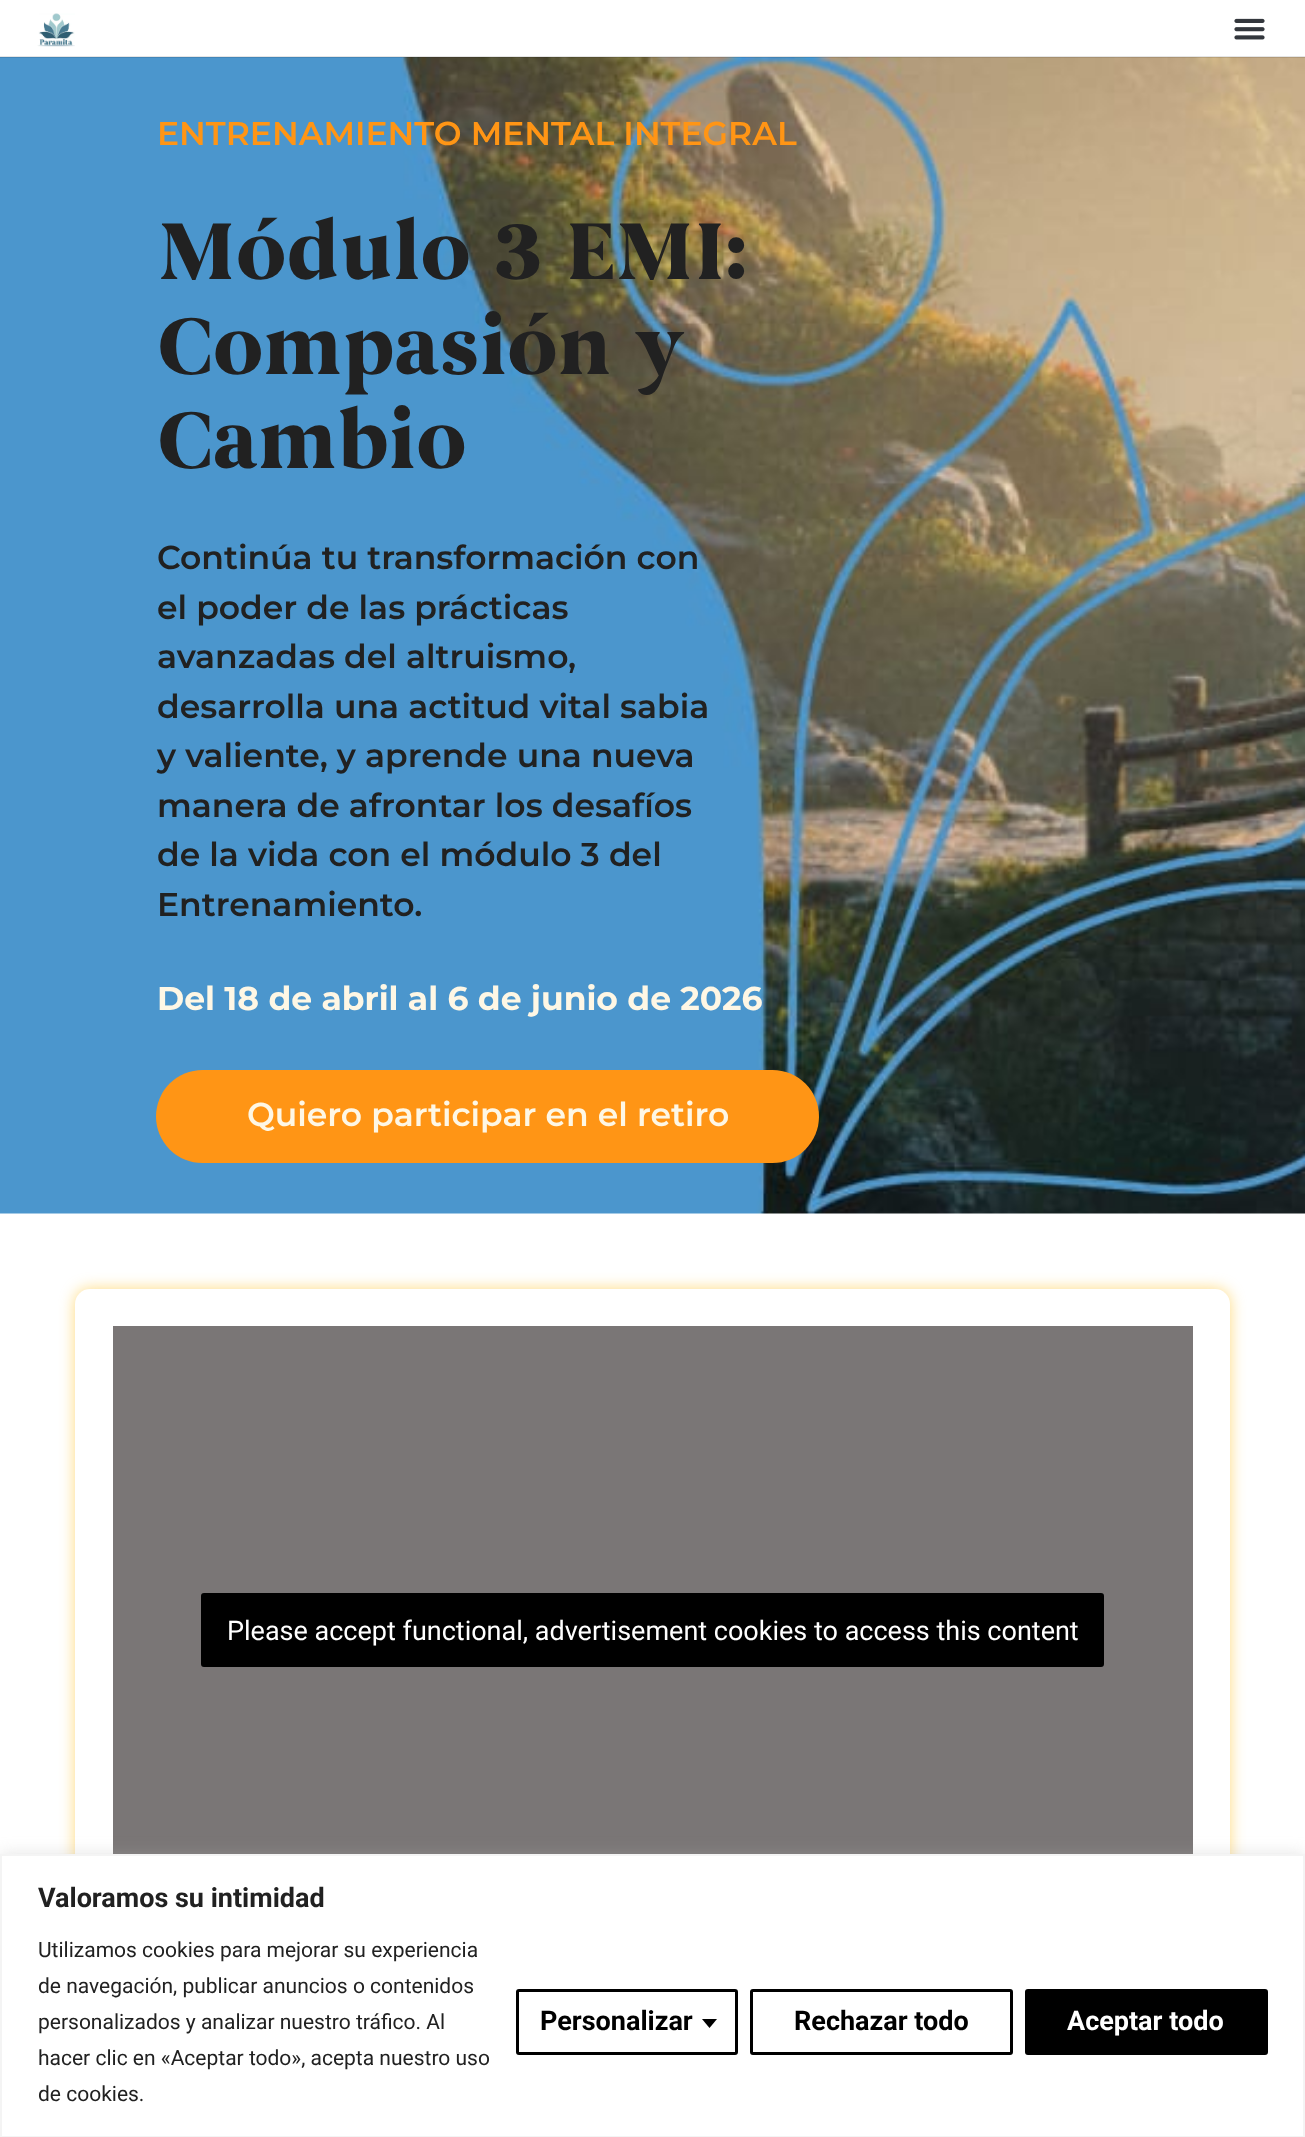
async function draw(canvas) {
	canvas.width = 1305;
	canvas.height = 2137;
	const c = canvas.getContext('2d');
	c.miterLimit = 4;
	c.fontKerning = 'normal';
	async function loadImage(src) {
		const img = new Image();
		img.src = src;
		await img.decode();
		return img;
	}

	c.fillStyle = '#fff';
	c.fillRect(0, 0, 1305, 2137);
	c.drawImage(await loadImage('img3.png'), 0, 57, 1305, 1157);
	c.fillStyle = '#0000001a';
	c.fillRect(0, 56, 1305, 2);
	c.drawImage(await loadImage('img1.png'), 37, 13, 38, 34);
	c.drawImage(await loadImage('img2.png'), 1234, 18, 31, 22);
	c.font = '600 33px Montserrat';
	c.fillStyle = '#ff9515';
	c.fillText('ENTRENAMIENTO MENTAL INTEGRAL', 157, 145);
	c.font = 'bold 82.5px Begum';
	c.fillStyle = '#212121';
	for (const [text, x, y] of [
		['Módulo 3 EMI:', 157, 279],
		['Compasión y', 157, 374],
		['Cambio', 157, 468],
	]) {
		c.fillText(text, x, y);
	}
	c.font = '600 33px Montserrat';
	for (const [text, x, y] of [
		['Continúa tu transformación con', 157, 569],
		['el poder de las prácticas', 157, 619],
		['avanzadas del altruismo,', 157, 668],
		['desarrolla una actitud vital sabia', 157, 718],
		['y valiente, y aprende una nueva', 157, 767],
		['manera de afrontar los desafíos', 157, 817],
		['de la vida con el módulo 3 del', 157, 866],
		['Entrenamiento.', 157, 916],
	]) {
		c.fillText(text, x, y);
	}
	c.font = 'bold 33px Montserrat';
	c.fillStyle = '#fef7e5';
	c.fillText('Del 18 de abril al 6 de junio de 2026', 157, 1010);
	c.fillStyle = '#ff9515';
	c.beginPath();
	c.roundRect(156, 1070, 663, 93, 46.5);
	c.fill();
	c.font = '600 33px Montserrat';
	c.fillStyle = '#fef7e5';
	c.fillText('Quiero participar en el retiro', 247, 1126);
	c.fillStyle = '#ffb80385';
	c.filter = 'blur(7.5px)';
	c.beginPath();
	c.roundRect(75, 1289, 1155, 682, 15);
	c.fill();
	c.filter = 'none';
	c.fillStyle = '#fff';
	c.beginPath();
	c.roundRect(75, 1289, 1155, 682, 15);
	c.fill();
	c.fillStyle = '#7a7676';
	c.fillRect(113, 1326, 1080, 528);
	c.fillStyle = '#000';
	c.beginPath();
	c.roundRect(202, 1594, 901, 72, 2);
	c.fill();
	c.strokeStyle = '#000';
	c.lineWidth = 2;
	c.stroke();
	c.font = '27px Roboto';
	c.fillStyle = '#fff';
	c.fillText('Please accept functional, advertisement cookies to access this content', 227, 1640);
	c.fillStyle = '#acabab4d';
	c.filter = 'blur(7.5px)';
	c.beginPath();
	c.rect(0, 1853, 1305, 283);
	c.fill();
	c.filter = 'none';
	c.fillStyle = '#fff';
	c.beginPath();
	c.rect(1, 1855, 1303, 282);
	c.fill();
	c.strokeStyle = '#f4f4f4';
	c.stroke();
	c.font = 'bold 27px Roboto';
	c.fillStyle = '#212121';
	c.fillText('Valoramos su intimidad', 38, 1907);
	c.font = '21px Roboto';
	for (const [text, x, y] of [
		['Utilizamos cookies para mejorar su experiencia', 38, 1957],
		['de navegación, publicar anuncios o contenidos', 38, 1993],
		['personalizados y analizar nuestro tráfico. Al', 38, 2029],
		['hacer clic en «Aceptar todo», acepta nuestro uso', 38, 2065],
		['de cookies.', 38, 2101],
	]) {
		c.fillText(text, x, y);
	}
	c.beginPath();
	c.roundRect(517.5, 1990.5, 219, 63, 1.5);
	c.strokeStyle = '#000';
	c.lineWidth = 3;
	c.stroke();
	c.font = 'bold 27px Roboto';
	c.fillStyle = '#000';
	c.fillText('Personalizar', 540, 2030);
	c.beginPath();
	c.moveTo(702, 2019);
	c.lineTo(717, 2019);
	c.lineTo(709.5, 2028);
	c.closePath();
	c.fill();
	c.beginPath();
	c.roundRect(751.5, 1990.5, 260, 63, 1.5);
	c.stroke();
	c.fillText('Rechazar todo', 794, 2030);
	c.beginPath();
	c.roundRect(1026.5, 1990.5, 240, 63, 1.5);
	c.fill();
	c.stroke();
	c.fillStyle = '#fff';
	c.fillText('Aceptar todo', 1067, 2030);
}

draw(document.querySelector('canvas'));
